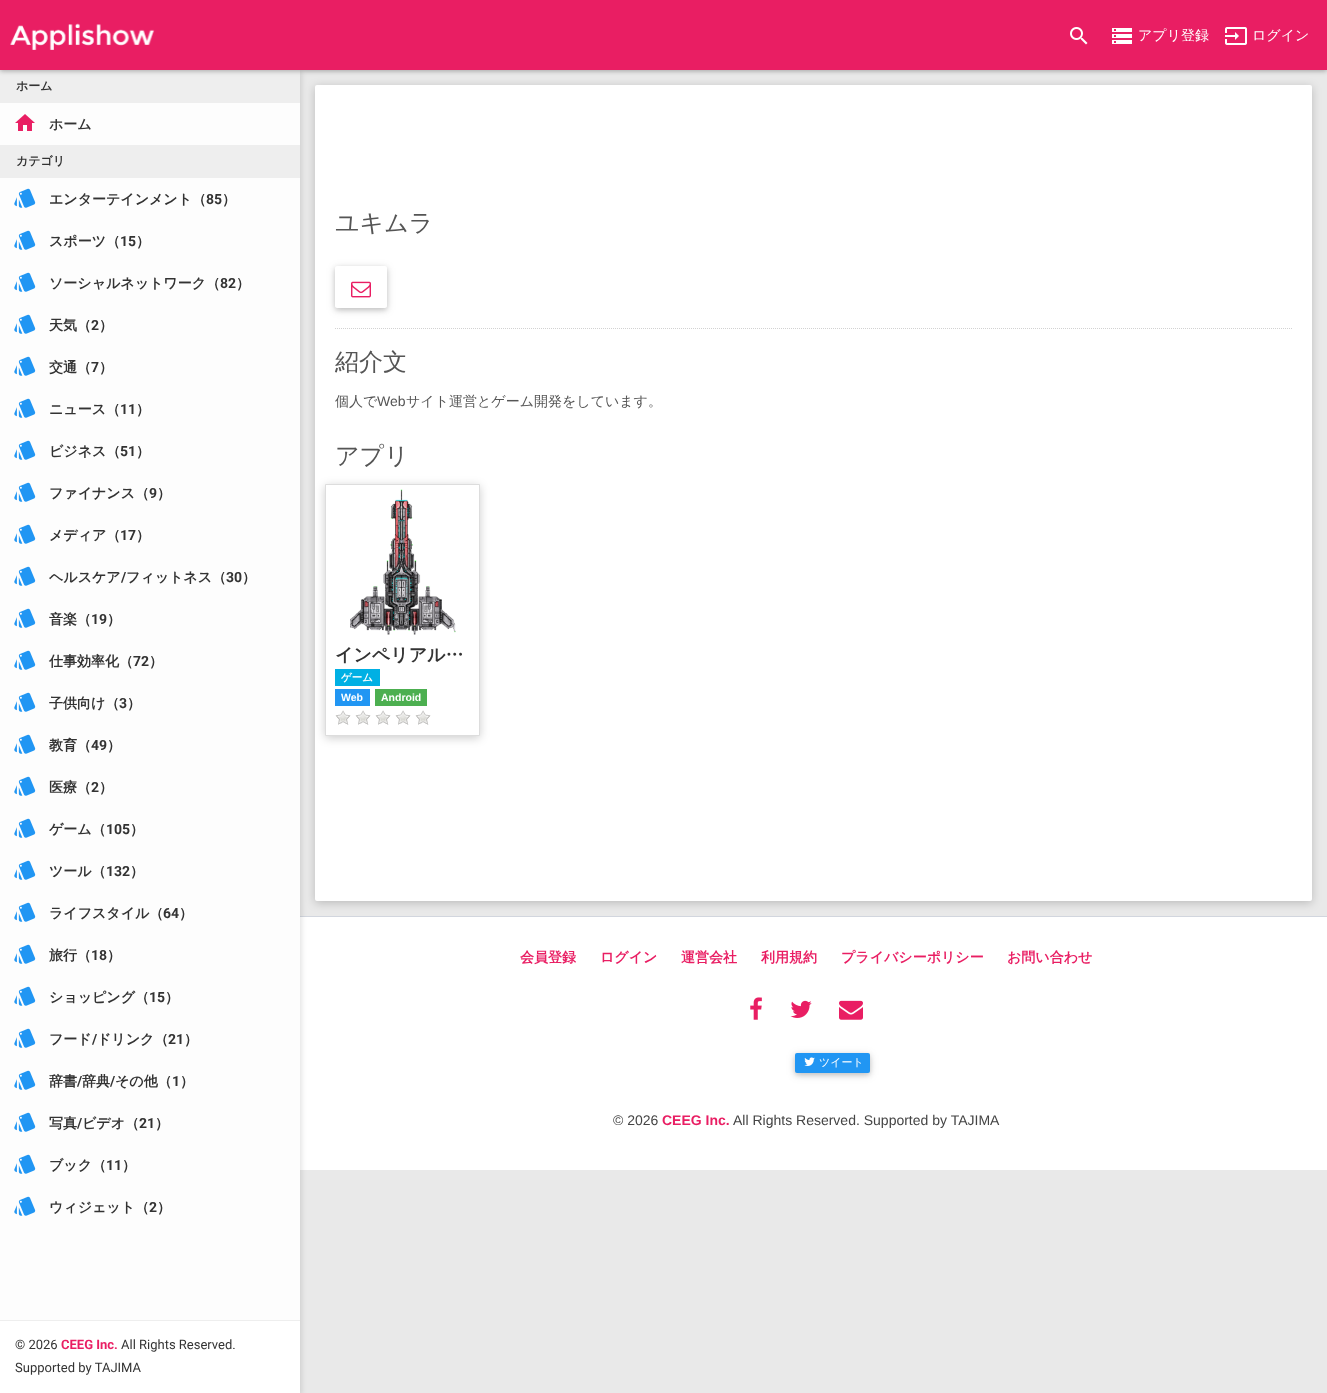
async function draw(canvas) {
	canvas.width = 1327;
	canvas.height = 1393;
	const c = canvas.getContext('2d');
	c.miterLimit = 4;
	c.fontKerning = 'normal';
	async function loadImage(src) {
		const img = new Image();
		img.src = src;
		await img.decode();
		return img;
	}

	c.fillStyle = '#e9e9e9';
	c.fillRect(0, 0, 1327, 1393);
	c.fillStyle = '#fff';
	c.fillRect(300, 917, 1027, 253);
	c.fillStyle = '#d2d6de';
	c.fillRect(300, 916, 1027, 1);
	c.fillStyle = '#0000001a';
	c.filter = 'blur(2.5px)';
	c.beginPath();
	c.rect(2, 72, 300, 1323);
	c.fill();
	c.filter = 'none';
	c.fillStyle = '#00000033';
	c.filter = 'blur(5px)';
	c.beginPath();
	c.roundRect(315, 87, 997, 816, 2);
	c.fill();
	c.filter = 'none';
	c.fillStyle = '#eee';
	c.fillRect(0, 70, 300, 33);
	c.fillStyle = '#0000004d';
	c.filter = 'blur(2.5px)';
	c.beginPath();
	c.rect(0, 1, 1327, 70);
	c.fill();
	c.filter = 'none';
	c.fillStyle = '#e91e63';
	c.fillRect(0, 0, 1327, 70);
	c.drawImage(await loadImage('img1.png'), 10, 23, 145, 27);
	c.drawImage(await loadImage('img2.png'), 1070, 27, 18, 18);
	c.drawImage(await loadImage('img3.png'), 1112, 28, 20, 16);
	c.font = '500 14px WenQuanYi Zen Hei';
	c.fillStyle = '#fff';
	c.fillText('アプリ登録', 1138, 40);
	c.drawImage(await loadImage('img4.png'), 1225, 27, 22, 18);
	c.fillText('ログイン', 1252, 40);
	c.fillStyle = '#fdfdfd';
	c.fillRect(0, 103, 300, 1217);
	c.font = 'bold 12px WenQuanYi Zen Hei';
	c.fillStyle = '#333';
	c.fillText('ホーム', 16, 90);
	c.drawImage(await loadImage('img5.png'), 15, 114, 20, 17);
	c.font = 'bold 14px WenQuanYi Zen Hei';
	c.fillText('ホーム', 49, 129);
	c.fillStyle = '#eee';
	c.fillRect(0, 145, 300, 33);
	c.font = 'bold 12px WenQuanYi Zen Hei';
	c.fillStyle = '#333';
	c.fillText('カテゴリ', 16, 165);
	c.drawImage(await loadImage('img6.png'), 14, 188, 22, 20);
	c.font = 'bold 14px WenQuanYi Zen Hei';
	c.fillText('エンターテインメント（', 49, 204);
	c.font = 'bold 14px Roboto';
	c.fillText('85', 206, 204);
	c.font = 'bold 14px WenQuanYi Zen Hei';
	c.fillText('）', 222, 204);
	c.drawImage(await loadImage('img6.png'), 14, 230, 22, 20);
	c.fillText('スポーツ（', 49, 246);
	c.font = 'bold 14px Roboto';
	c.fillText('15', 120, 246);
	c.font = 'bold 14px WenQuanYi Zen Hei';
	c.fillText('）', 136, 246);
	c.drawImage(await loadImage('img6.png'), 14, 272, 22, 20);
	c.fillText('ソーシャルネットワーク（', 49, 288);
	c.font = 'bold 14px Roboto';
	c.fillText('82', 220, 288);
	c.font = 'bold 14px WenQuanYi Zen Hei';
	c.fillText('）', 236, 288);
	c.drawImage(await loadImage('img6.png'), 14, 314, 22, 20);
	c.fillText('天気（', 49, 330);
	c.font = 'bold 14px Roboto';
	c.fillText('2', 91, 330);
	c.font = 'bold 14px WenQuanYi Zen Hei';
	c.fillText('）', 99, 330);
	c.drawImage(await loadImage('img6.png'), 14, 356, 22, 20);
	c.fillText('交通（', 49, 372);
	c.font = 'bold 14px Roboto';
	c.fillText('7', 91, 372);
	c.font = 'bold 14px WenQuanYi Zen Hei';
	c.fillText('）', 99, 372);
	c.drawImage(await loadImage('img6.png'), 14, 398, 22, 20);
	c.fillText('ニュース（', 49, 414);
	c.font = 'bold 14px Roboto';
	c.fillText('11', 120, 414);
	c.font = 'bold 14px WenQuanYi Zen Hei';
	c.fillText('）', 136, 414);
	c.drawImage(await loadImage('img6.png'), 14, 440, 22, 20);
	c.fillText('ビジネス（', 49, 456);
	c.font = 'bold 14px Roboto';
	c.fillText('51', 120, 456);
	c.font = 'bold 14px WenQuanYi Zen Hei';
	c.fillText('）', 136, 456);
	c.drawImage(await loadImage('img6.png'), 14, 482, 22, 20);
	c.fillText('ファイナンス（', 49, 498);
	c.font = 'bold 14px Roboto';
	c.fillText('9', 149, 498);
	c.font = 'bold 14px WenQuanYi Zen Hei';
	c.fillText('）', 157, 498);
	c.drawImage(await loadImage('img6.png'), 14, 524, 22, 20);
	c.fillText('メディア（', 49, 540);
	c.font = 'bold 14px Roboto';
	c.fillText('17', 120, 540);
	c.font = 'bold 14px WenQuanYi Zen Hei';
	c.fillText('）', 136, 540);
	c.drawImage(await loadImage('img6.png'), 14, 566, 22, 20);
	c.fillText('ヘルスケア', 49, 582);
	c.font = 'bold 14px Roboto';
	c.fillText('/', 121, 582);
	c.font = 'bold 14px WenQuanYi Zen Hei';
	c.fillText('フィットネス（', 126, 582);
	c.font = 'bold 14px Roboto';
	c.fillText('30', 226, 582);
	c.font = 'bold 14px WenQuanYi Zen Hei';
	c.fillText('）', 242, 582);
	c.drawImage(await loadImage('img6.png'), 14, 608, 22, 20);
	c.fillText('音楽（', 49, 624);
	c.font = 'bold 14px Roboto';
	c.fillText('19', 91, 624);
	c.font = 'bold 14px WenQuanYi Zen Hei';
	c.fillText('）', 107, 624);
	c.drawImage(await loadImage('img6.png'), 14, 650, 22, 20);
	c.fillText('仕事効率化（', 49, 666);
	c.font = 'bold 14px Roboto';
	c.fillText('72', 133, 666);
	c.font = 'bold 14px WenQuanYi Zen Hei';
	c.fillText('）', 149, 666);
	c.drawImage(await loadImage('img6.png'), 14, 692, 22, 20);
	c.fillText('子供向け（', 49, 708);
	c.font = 'bold 14px Roboto';
	c.fillText('3', 119, 708);
	c.font = 'bold 14px WenQuanYi Zen Hei';
	c.fillText('）', 127, 708);
	c.drawImage(await loadImage('img6.png'), 14, 734, 22, 20);
	c.fillText('教育（', 49, 750);
	c.font = 'bold 14px Roboto';
	c.fillText('49', 91, 750);
	c.font = 'bold 14px WenQuanYi Zen Hei';
	c.fillText('）', 107, 750);
	c.drawImage(await loadImage('img6.png'), 14, 776, 22, 20);
	c.fillText('医療（', 49, 792);
	c.font = 'bold 14px Roboto';
	c.fillText('2', 91, 792);
	c.font = 'bold 14px WenQuanYi Zen Hei';
	c.fillText('）', 99, 792);
	c.drawImage(await loadImage('img6.png'), 14, 818, 22, 20);
	c.fillText('ゲーム（', 49, 834);
	c.font = 'bold 14px Roboto';
	c.fillText('105', 106, 834);
	c.font = 'bold 14px WenQuanYi Zen Hei';
	c.fillText('）', 130, 834);
	c.drawImage(await loadImage('img6.png'), 14, 860, 22, 20);
	c.fillText('ツール（', 49, 876);
	c.font = 'bold 14px Roboto';
	c.fillText('132', 106, 876);
	c.font = 'bold 14px WenQuanYi Zen Hei';
	c.fillText('）', 130, 876);
	c.drawImage(await loadImage('img6.png'), 14, 902, 22, 20);
	c.fillText('ライフスタイル（', 49, 918);
	c.font = 'bold 14px Roboto';
	c.fillText('64', 163, 918);
	c.font = 'bold 14px WenQuanYi Zen Hei';
	c.fillText('）', 179, 918);
	c.drawImage(await loadImage('img6.png'), 14, 944, 22, 20);
	c.fillText('旅行（', 49, 960);
	c.font = 'bold 14px Roboto';
	c.fillText('18', 91, 960);
	c.font = 'bold 14px WenQuanYi Zen Hei';
	c.fillText('）', 107, 960);
	c.drawImage(await loadImage('img6.png'), 14, 986, 22, 20);
	c.fillText('ショッピング（', 49, 1002);
	c.font = 'bold 14px Roboto';
	c.fillText('15', 149, 1002);
	c.font = 'bold 14px WenQuanYi Zen Hei';
	c.fillText('）', 165, 1002);
	c.drawImage(await loadImage('img6.png'), 14, 1028, 22, 20);
	c.fillText('フード', 49, 1044);
	c.font = 'bold 14px Roboto';
	c.fillText('/', 92, 1044);
	c.font = 'bold 14px WenQuanYi Zen Hei';
	c.fillText('ドリンク（', 97, 1044);
	c.font = 'bold 14px Roboto';
	c.fillText('21', 168, 1044);
	c.font = 'bold 14px WenQuanYi Zen Hei';
	c.fillText('）', 184, 1044);
	c.drawImage(await loadImage('img6.png'), 14, 1070, 22, 20);
	c.fillText('辞書', 49, 1086);
	c.font = 'bold 14px Roboto';
	c.fillText('/', 77, 1086);
	c.font = 'bold 14px WenQuanYi Zen Hei';
	c.fillText('辞典', 82, 1086);
	c.font = 'bold 14px Roboto';
	c.fillText('/', 110, 1086);
	c.font = 'bold 14px WenQuanYi Zen Hei';
	c.fillText('その他（', 115, 1086);
	c.font = 'bold 14px Roboto';
	c.fillText('1', 172, 1086);
	c.font = 'bold 14px WenQuanYi Zen Hei';
	c.fillText('）', 180, 1086);
	c.drawImage(await loadImage('img6.png'), 14, 1112, 22, 20);
	c.fillText('写真', 49, 1128);
	c.font = 'bold 14px Roboto';
	c.fillText('/', 77, 1128);
	c.font = 'bold 14px WenQuanYi Zen Hei';
	c.fillText('ビデオ（', 82, 1128);
	c.font = 'bold 14px Roboto';
	c.fillText('21', 139, 1128);
	c.font = 'bold 14px WenQuanYi Zen Hei';
	c.fillText('）', 155, 1128);
	c.drawImage(await loadImage('img6.png'), 14, 1154, 22, 20);
	c.fillText('ブック（', 49, 1170);
	c.font = 'bold 14px Roboto';
	c.fillText('11', 106, 1170);
	c.font = 'bold 14px WenQuanYi Zen Hei';
	c.fillText('）', 122, 1170);
	c.drawImage(await loadImage('img6.png'), 14, 1196, 22, 20);
	c.fillText('ウィジェット（', 49, 1212);
	c.font = 'bold 14px Roboto';
	c.fillText('2', 149, 1212);
	c.font = 'bold 14px WenQuanYi Zen Hei';
	c.fillText('）', 157, 1212);
	c.fillStyle = '#fff';
	c.fillRect(0, 1321, 300, 72);
	c.fillStyle = '#eee';
	c.fillRect(0, 1320, 300, 1);
	c.font = '13px Roboto';
	c.fillStyle = '#333';
	c.fillText('© 2026', 15, 1349);
	c.font = 'bold 13px Roboto';
	c.fillStyle = '#e91e63';
	c.fillText('CEEG Inc.', 61, 1349);
	c.font = '13px Roboto';
	c.fillStyle = '#333';
	c.fillText('All Rights Reserved.', 121, 1349);
	c.fillText('Supported by TAJIMA', 15, 1372);
	c.fillStyle = '#fff';
	c.beginPath();
	c.roundRect(315, 85, 997, 816, 2);
	c.fill();
	c.font = '500 24px WenQuanYi Zen Hei';
	c.fillStyle = '#555';
	c.fillText('ユキムラ', 335, 231);
	c.beginPath();
	c.moveTo(335, 328.5);
	c.lineTo(1292, 328.5);
	c.strokeStyle = '#d2d2d2';
	c.setLineDash([1, 1]);
	c.stroke();
	c.save();
	c.beginPath();
	c.moveTo(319, 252);
	c.lineTo(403, 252);
	c.lineTo(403, 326);
	c.lineTo(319, 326);
	c.closePath();
	c.moveTo(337, 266);
	c.lineTo(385, 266);
	c.bezierCurveTo(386, 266, 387, 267, 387, 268);
	c.lineTo(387, 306);
	c.bezierCurveTo(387, 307, 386, 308, 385, 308);
	c.lineTo(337, 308);
	c.bezierCurveTo(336, 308, 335, 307, 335, 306);
	c.lineTo(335, 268);
	c.bezierCurveTo(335, 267, 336, 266, 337, 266);
	c.closePath();
	c.clip('evenodd');
	c.fillStyle = '#0000001f';
	c.filter = 'blur(5px)';
	c.beginPath();
	c.roundRect(335, 268, 52, 42, 2);
	c.fill();
	c.filter = 'none';
	c.restore();
	c.save();
	c.beginPath();
	c.moveTo(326, 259);
	c.lineTo(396, 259);
	c.lineTo(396, 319);
	c.lineTo(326, 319);
	c.closePath();
	c.moveTo(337, 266);
	c.lineTo(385, 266);
	c.bezierCurveTo(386, 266, 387, 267, 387, 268);
	c.lineTo(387, 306);
	c.bezierCurveTo(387, 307, 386, 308, 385, 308);
	c.lineTo(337, 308);
	c.bezierCurveTo(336, 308, 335, 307, 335, 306);
	c.lineTo(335, 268);
	c.bezierCurveTo(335, 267, 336, 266, 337, 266);
	c.closePath();
	c.clip('evenodd');
	c.fillStyle = '#00000029';
	c.filter = 'blur(2.5px)';
	c.beginPath();
	c.roundRect(335, 268, 52, 42, 2);
	c.fill();
	c.filter = 'none';
	c.restore();
	c.drawImage(await loadImage('img7.png'), 351, 281, 20, 17);
	c.fillText('紹介文', 335, 370);
	c.font = '500 14px WenQuanYi Zen Hei';
	c.fillText('個人で', 335, 406);
	c.font = '14px Liberation Sans';
	c.fillText('Web', 377, 406);
	c.font = '500 14px WenQuanYi Zen Hei';
	c.fillText('サイト運営とゲーム開発をしています。', 406, 406);
	c.font = '500 24px WenQuanYi Zen Hei';
	c.fillText('アプリ', 335, 464);
	c.fillStyle = '#00000033';
	c.filter = 'blur(5px)';
	c.beginPath();
	c.roundRect(325, 486, 155, 252, 2);
	c.fill();
	c.filter = 'none';
	c.fillStyle = '#fff';
	c.beginPath();
	c.rect(325.5, 484.5, 154, 251);
	c.fill();
	c.strokeStyle = '#ddd';
	c.setLineDash([]);
	c.stroke();
	c.drawImage(await loadImage('img8.png'), 350, 489, 106, 146);
	c.font = 'bold 18px WenQuanYi Zen Hei';
	c.fillStyle = '#333';
	c.fillText('インペリアル…', 335, 661);
	c.fillStyle = '#00b0e4';
	c.fillRect(335, 669, 45, 17);
	c.font = 'bold 10.5px WenQuanYi Zen Hei';
	c.fillStyle = '#fff';
	c.fillText('ゲーム', 341, 681);
	c.fillStyle = '#2196f3';
	c.fillRect(335, 689, 35, 17);
	c.font = 'bold 10.5px Liberation Sans';
	c.fillStyle = '#fff';
	c.fillText('Web', 341, 701);
	c.fillStyle = '#4caf50';
	c.fillRect(375, 689, 52, 17);
	c.fillStyle = '#fff';
	c.fillText('Android', 381, 701);
	c.drawImage(await loadImage('img9.png'), 335, 710, 16, 15);
	c.drawImage(await loadImage('img9.png'), 355, 710, 16, 15);
	c.drawImage(await loadImage('img9.png'), 375, 710, 16, 15);
	c.drawImage(await loadImage('img9.png'), 395, 710, 16, 15);
	c.drawImage(await loadImage('img9.png'), 415, 710, 16, 15);
	c.font = 'bold 14px WenQuanYi Zen Hei';
	c.fillStyle = '#e91e63';
	for (const [text, x, y] of [
		['会員登録', 520, 962],
		['ログイン', 600, 962],
		['運営会社', 681, 962],
		['利用規約', 761, 962],
		['プライバシーポリシー', 841, 962],
		['お問い合わせ', 1007, 962],
	]) {
		c.fillText(text, x, y);
	}
	c.drawImage(await loadImage('img10.png'), 750, 997, 12, 23);
	c.drawImage(await loadImage('img11.png'), 790, 1000, 22, 18);
	c.drawImage(await loadImage('img12.png'), 839, 1000, 24, 20);
	c.fillStyle = '#0000001f';
	c.filter = 'blur(5px)';
	c.beginPath();
	c.roundRect(795, 1055, 75, 20, 2);
	c.fill();
	c.filter = 'none';
	c.fillStyle = '#00000029';
	c.filter = 'blur(2.5px)';
	c.beginPath();
	c.roundRect(795, 1055, 75, 20, 2);
	c.fill();
	c.filter = 'none';
	c.fillStyle = '#2196f3';
	c.beginPath();
	c.roundRect(795, 1053, 75, 20, 2);
	c.fill();
	c.drawImage(await loadImage('img13.png'), 804, 1057, 11, 9);
	c.font = '500 11px WenQuanYi Zen Hei';
	c.fillStyle = '#fff';
	c.fillText('ツイート', 819, 1066);
	c.font = '14px Liberation Sans';
	c.fillStyle = '#444';
	c.fillText('© 2026', 613, 1125);
	c.font = 'bold 14px Liberation Sans';
	c.fillStyle = '#e91e63';
	c.fillText('CEEG Inc.', 662, 1125);
	c.font = '14px Liberation Sans';
	c.fillStyle = '#444';
	c.fillText('All Rights Reserved. Supported by TAJIMA', 733, 1125);
}

draw(document.querySelector('canvas'));
